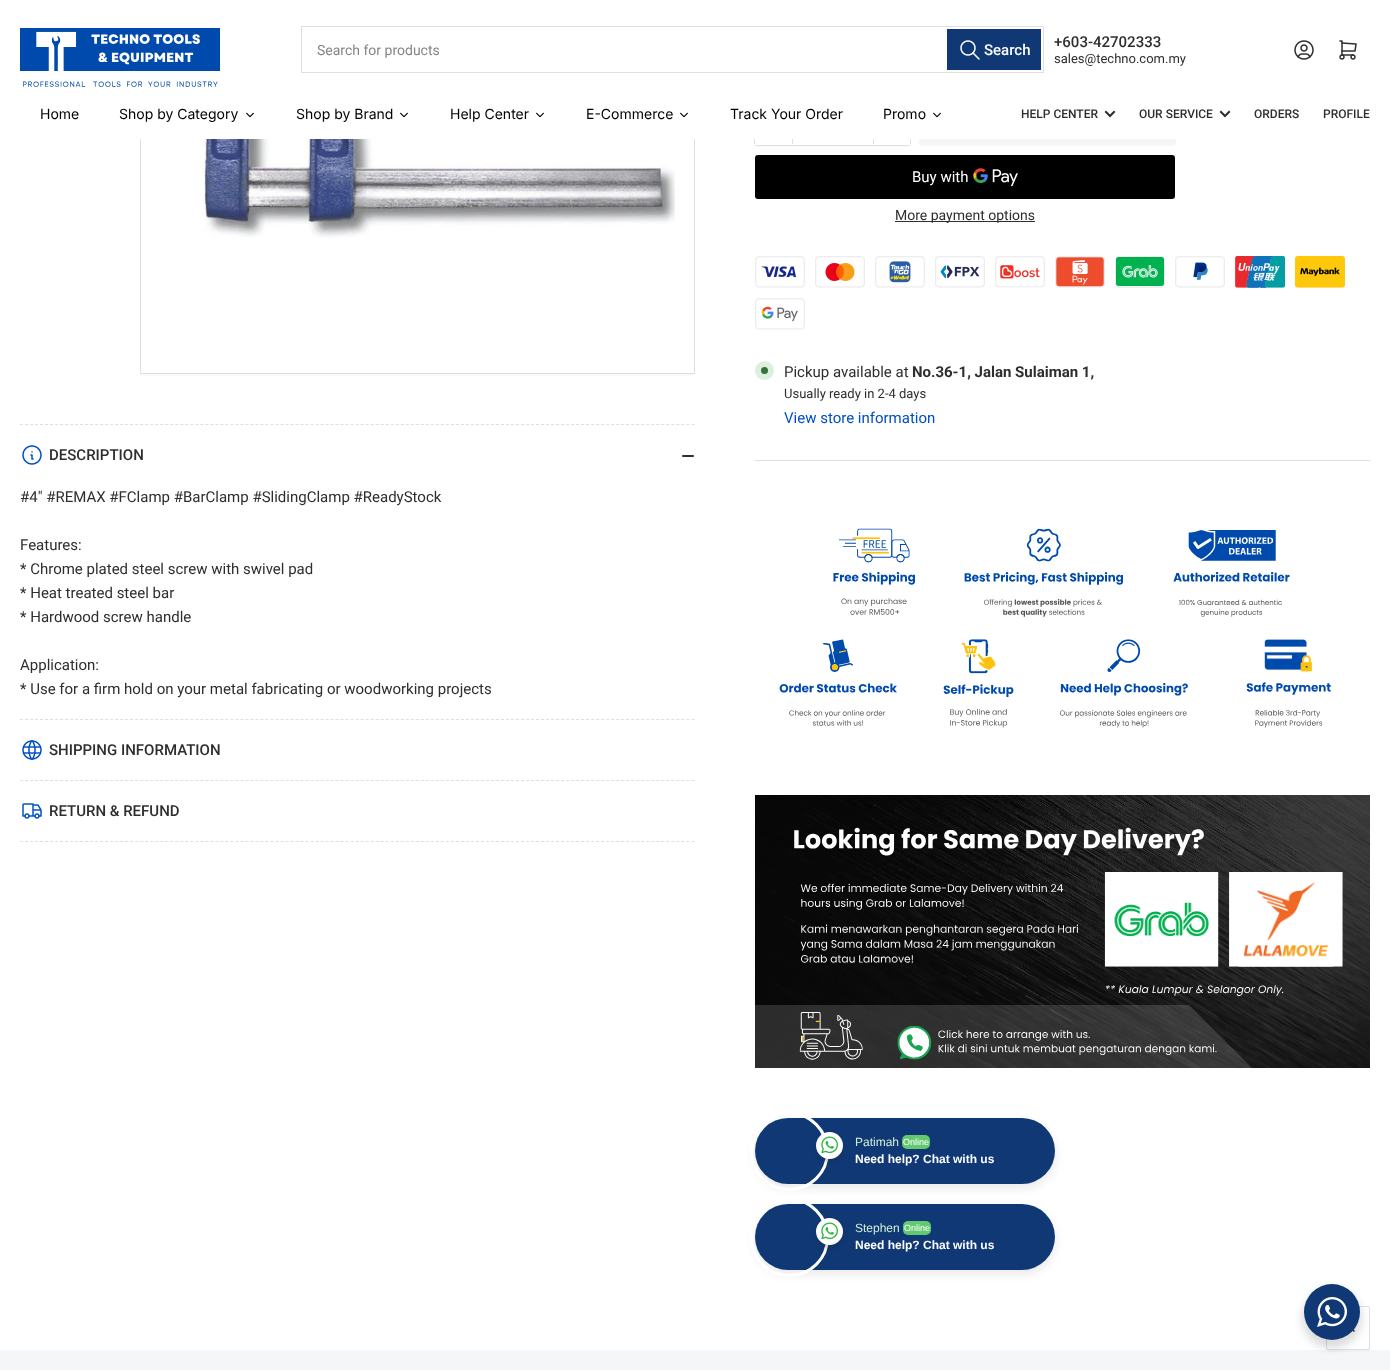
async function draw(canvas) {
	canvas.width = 1390;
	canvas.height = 1370;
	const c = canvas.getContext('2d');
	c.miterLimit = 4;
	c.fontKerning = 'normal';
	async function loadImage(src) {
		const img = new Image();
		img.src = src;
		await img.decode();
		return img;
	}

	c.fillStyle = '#fff';
	c.fillRect(0, 0, 1390, 1370);
	c.strokeStyle = '#dfdfdf';
	c.strokeRect(140.5, -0.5, 554, 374);
	c.fillRect(140, 0, 555, 89);
	c.drawImage(await loadImage('img1.png'), 20, 28, 200, 59);
	c.strokeRect(301.5, 26.5, 742, 46);
	c.font = '14px Roboto';
	c.fillStyle = '#858585';
	c.fillText('Search for products', 317, 55);
	c.strokeStyle = '#0f3875';
	c.strokeRect(947.5, 29.5, 93, 40);
	c.fillStyle = '#0f3875';
	c.fillRect(948, 30, 92, 39);
	c.drawImage(await loadImage('img2.png'), 960, 40, 20, 20);
	c.font = '500 15px Roboto';
	c.fillStyle = '#fff';
	c.fillText('Search', 984, 55);
	c.fillStyle = '#2e2e2e';
	c.fillText('+603-42702333', 1054, 47);
	c.font = '13px Roboto';
	c.fillText('sales@techno.com.my', 1054, 63);
	c.drawImage(await loadImage('img3.png'), 1294, 40, 20, 20);
	c.drawImage(await loadImage('img4.png'), 1339, 40, 18, 20);
	c.fillStyle = '#f9f9f9';
	c.beginPath();
	c.moveTo(755, 143);
	c.bezierCurveTo(755, 145, 755, 147, 757, 147);
	c.lineTo(909, 147);
	c.bezierCurveTo(910, 146, 910, 144, 910, 143);
	c.bezierCurveTo(910, 144, 909, 145, 908, 145);
	c.lineTo(757, 145);
	c.bezierCurveTo(756, 145, 755, 144, 755, 143);
	c.closePath();
	c.fill();
	c.beginPath();
	c.roundRect(754.5, 102.5, 156, 43, 2.5);
	c.strokeStyle = '#dfdfdf';
	c.stroke();
	c.beginPath();
	c.roundRect(919.5, 102.5, 256, 43, 2.5);
	c.strokeStyle = '#f4f6f8';
	c.stroke();
	c.fillStyle = '#f4f6f8';
	c.beginPath();
	c.roundRect(920, 103, 255, 42, 2);
	c.fill();
	c.fillStyle = '#fff';
	c.fillRect(140, 89, 1036, 50);
	c.font = '14px Inter';
	c.fillStyle = '#000';
	c.fillText('Home', 40, 119);
	c.fillText('Shop by Category', 119, 119);
	c.drawImage(await loadImage('img5.png'), 246, 112, 8, 6);
	c.fillText('Shop by Brand', 296, 119);
	c.drawImage(await loadImage('img5.png'), 400, 112, 8, 6);
	c.fillText('Help Center', 450, 119);
	c.drawImage(await loadImage('img5.png'), 536, 112, 8, 6);
	c.fillText('E-Commerce', 586, 119);
	c.drawImage(await loadImage('img5.png'), 680, 112, 8, 6);
	c.fillText('Track Your Order', 730, 119);
	c.fillText('Promo', 883, 119);
	c.drawImage(await loadImage('img5.png'), 933, 112, 8, 6);
	c.font = '500 12px Roboto';
	c.fillStyle = '#2e2e2e';
	c.fillText('HELP CENTER', 1021, 118);
	c.beginPath();
	c.moveTo(1114, 112);
	c.lineTo(1110, 116);
	c.lineTo(1106, 112);
	c.strokeStyle = '#2e2e2e';
	c.lineWidth = 2;
	c.lineCap = 'square';
	c.stroke();
	c.fillText('OUR SERVICE', 1139, 118);
	c.beginPath();
	c.moveTo(1229, 112);
	c.lineTo(1225, 116);
	c.lineTo(1221, 112);
	c.stroke();
	c.fillText('ORDERS', 1254, 118);
	c.fillText('PROFILE', 1323, 118);
	c.fillStyle = '#f9f9f9';
	c.fillRect(140, 374, 555, 2);
	c.drawImage(await loadImage('img6.png'), 201, 139, 474, 99);
	for (const [x, y, w, h, color] of [
		[755, 143, 2, 2, '#fff'],
		[873, 139, 1, 5, '#dfdfdf'],
		[792, 139, 1, 5, '#dfdfdf'],
		[908, 143, 2, 2, '#fff'],
	]) {
		c.fillStyle = color;
		c.fillRect(x, y, w, h);
	}
	c.fillStyle = '#000';
	c.beginPath();
	c.roundRect(755, 155, 420, 44, 3);
	c.fill();
	c.font = '15px Roboto';
	c.fillStyle = '#fff';
	c.fillText('Buy with', 912, 182);
	c.drawImage(await loadImage('img7.png'), 973, 168, 45, 18);
	c.fillStyle = '#2e2e2e';
	c.fillRect(895, 221, 140, 1);
	c.font = '14px Roboto';
	c.fillText('More payment options', 895, 220);
	c.drawImage(await loadImage('img8.png'), 755, 256, 50, 32);
	c.drawImage(await loadImage('img9.png'), 815, 256, 50, 32);
	c.drawImage(await loadImage('img10.png'), 875, 256, 50, 32);
	c.drawImage(await loadImage('img11.png'), 935, 256, 50, 32);
	c.drawImage(await loadImage('img12.png'), 995, 256, 50, 32);
	c.drawImage(await loadImage('img13.png'), 1055, 256, 50, 32);
	c.drawImage(await loadImage('img14.png'), 1115, 256, 50, 32);
	c.drawImage(await loadImage('img15.png'), 1175, 256, 50, 32);
	c.drawImage(await loadImage('img16.png'), 1235, 256, 50, 32);
	c.drawImage(await loadImage('img17.png'), 1295, 256, 50, 32);
	c.drawImage(await loadImage('img18.png'), 755, 298, 50, 32);
	c.fillStyle = '#dfdfdf';
	c.fillRect(755, 460, 615, 1);
	c.fillStyle = '#ddf0df';
	c.beginPath();
	c.arc(764.5, 370.5, 9.5, 0, 2 * Math.PI);
	c.fill();
	c.fillStyle = '#337239';
	c.beginPath();
	c.arc(764.5, 370.5, 3.5, 0, 2 * Math.PI);
	c.fill();
	c.font = '15px Roboto';
	c.fillStyle = '#2e2e2e';
	c.fillText('Pickup available at', 784, 377);
	c.font = 'bold 15px Roboto';
	c.fillText('No.36-1, Jalan Sulaiman 1,', 912, 377);
	c.font = '13px Roboto';
	c.fillText('Usually ready in 2-4 days', 784, 398);
	c.font = '15px Roboto';
	c.fillStyle = '#004fc7';
	c.fillText('View store information', 784, 423);
	c.drawImage(await loadImage('img19.png'), 779, 528, 552, 200);
	c.drawImage(await loadImage('img20.png'), 755, 795, 615, 273);
	c.fillStyle = '#20202517';
	c.filter = 'blur(4px)';
	c.beginPath();
	c.roundRect(754, 1121, 302, 68, 34);
	c.fill();
	c.filter = 'none';
	c.fillStyle = '#0f3875';
	c.beginPath();
	c.roundRect(755, 1118, 300, 66, 33);
	c.fill();
	c.beginPath();
	c.arc(789.5, 1151.5, 38, 0, 2 * Math.PI);
	c.strokeStyle = '#fff';
	c.lineWidth = 3;
	c.stroke();
	c.fillStyle = '#27262642';
	c.filter = 'blur(2px)';
	c.beginPath();
	c.roundRect(816, 1135, 27, 27, 13.5);
	c.fill();
	c.filter = 'none';
	c.fillStyle = '#fff';
	c.beginPath();
	c.arc(829.5, 1145.5, 13.5, 0, 2 * Math.PI);
	c.fill();
	c.drawImage(await loadImage('img21.png'), 821, 1136, 17, 17);
	c.font = '12px Liberation Sans';
	c.fillStyle = '#d5f0d9';
	c.fillText('Patimah', 855, 1146);
	c.fillStyle = '#62c971';
	c.beginPath();
	c.roundRect(902, 1135, 28, 14, 5);
	c.fill();
	c.font = '9px Liberation Sans';
	c.fillStyle = '#fff';
	c.fillText('Online', 903, 1145);
	c.font = 'bold 12px Liberation Sans';
	c.fillText('Need help? Chat with us', 855, 1163);
	c.fillStyle = '#20202517';
	c.filter = 'blur(4px)';
	c.beginPath();
	c.roundRect(754, 1207, 302, 68, 34);
	c.fill();
	c.filter = 'none';
	c.fillStyle = '#0f3875';
	c.beginPath();
	c.roundRect(755, 1204, 300, 66, 33);
	c.fill();
	c.beginPath();
	c.arc(789.5, 1237.5, 38, 0, 2 * Math.PI);
	c.stroke();
	c.fillStyle = '#27262642';
	c.filter = 'blur(2px)';
	c.beginPath();
	c.roundRect(816, 1221, 27, 27, 13.5);
	c.fill();
	c.filter = 'none';
	c.fillStyle = '#fff';
	c.beginPath();
	c.arc(829.5, 1231.5, 13.5, 0, 2 * Math.PI);
	c.fill();
	c.drawImage(await loadImage('img21.png'), 821, 1222, 17, 17);
	c.font = '12px Liberation Sans';
	c.fillStyle = '#d5f0d9';
	c.fillText('Stephen', 855, 1232);
	c.fillStyle = '#62c971';
	c.beginPath();
	c.roundRect(903, 1221, 28, 14, 5);
	c.fill();
	c.font = '9px Liberation Sans';
	c.fillStyle = '#fff';
	c.fillText('Online', 904, 1231);
	c.font = 'bold 12px Liberation Sans';
	c.fillText('Need help? Chat with us', 855, 1249);
	c.beginPath();
	c.moveTo(20, 424.5);
	c.lineTo(695, 424.5);
	c.strokeStyle = '#dfdfdf';
	c.lineWidth = 1;
	c.lineCap = 'butt';
	c.setLineDash([3, 2.01]);
	c.stroke();
	c.beginPath();
	c.moveTo(20, 719.5);
	c.lineTo(695, 719.5);
	c.stroke();
	c.drawImage(await loadImage('img22.png'), 22, 445, 20, 20);
	c.font = '500 15px Roboto';
	c.fillStyle = '#2e2e2e';
	c.fillText('DESCRIPTION', 49, 460);
	c.beginPath();
	c.roundRect(682, 455, 7, 2, 1);
	c.fill();
	c.beginPath();
	c.roundRect(686, 455, 8, 2, 1);
	c.fill();
	c.font = '15px Roboto';
	for (const [text, x, y] of [
		['#4" #REMAX #FClamp #BarClamp #SlidingClamp #ReadyStock', 20, 502],
		['Features:', 20, 550],
		['* Chrome plated steel screw with swivel pad', 20, 574],
		['* Heat treated steel bar', 20, 598],
		['* Hardwood screw handle', 20, 622],
		['Application:', 20, 670],
		['* Use for a firm hold on your metal fabricating or woodworking projects', 20, 694],
	]) {
		c.fillText(text, x, y);
	}
	c.beginPath();
	c.moveTo(20, 780.5);
	c.lineTo(695, 780.5);
	c.stroke();
	c.drawImage(await loadImage('img23.png'), 22, 740, 20, 20);
	c.font = '500 15px Roboto';
	c.fillText('SHIPPING INFORMATION', 49, 755);
	c.beginPath();
	c.moveTo(20, 841.5);
	c.lineTo(695, 841.5);
	c.stroke();
	c.drawImage(await loadImage('img24.png'), 22, 803, 20, 16);
	c.fillText('RETURN & REFUND', 49, 816);
	c.fillStyle = '#f4f6f8';
	c.fillRect(0, 1350, 1390, 20);
	c.fillStyle = '#dfdfdf33';
	c.beginPath();
	c.moveTo(1326, 1348);
	c.bezierCurveTo(1326, 1354, 1329, 1352, 1335, 1352);
	c.lineTo(1361, 1352);
	c.bezierCurveTo(1367, 1352, 1370, 1354, 1370, 1348);
	c.bezierCurveTo(1370, 1349, 1369, 1350, 1368, 1350);
	c.lineTo(1328, 1350);
	c.bezierCurveTo(1327, 1350, 1326, 1349, 1326, 1348);
	c.closePath();
	c.fill();
	c.beginPath();
	c.roundRect(1326.5, 1306.5, 43, 43, 1.5);
	c.setLineDash([]);
	c.stroke();
	c.beginPath();
	c.moveTo(1342, 1331);
	c.lineTo(1348, 1325);
	c.lineTo(1354, 1331);
	c.strokeStyle = '#232323';
	c.lineWidth = 1.5;
	c.lineCap = 'round';
	c.lineJoin = 'round';
	c.stroke();
	c.fillStyle = '#00000024';
	c.filter = 'blur(4px)';
	c.beginPath();
	c.roundRect(1302, 1288, 60, 60, 30);
	c.fill();
	c.filter = 'none';
	c.fillStyle = '#0f3875';
	c.beginPath();
	c.arc(1332, 1312, 28, 0, 2 * Math.PI);
	c.fill();
	c.drawImage(await loadImage('img25.png'), 1317, 1297, 30, 30);
}

draw(document.querySelector('canvas'));
